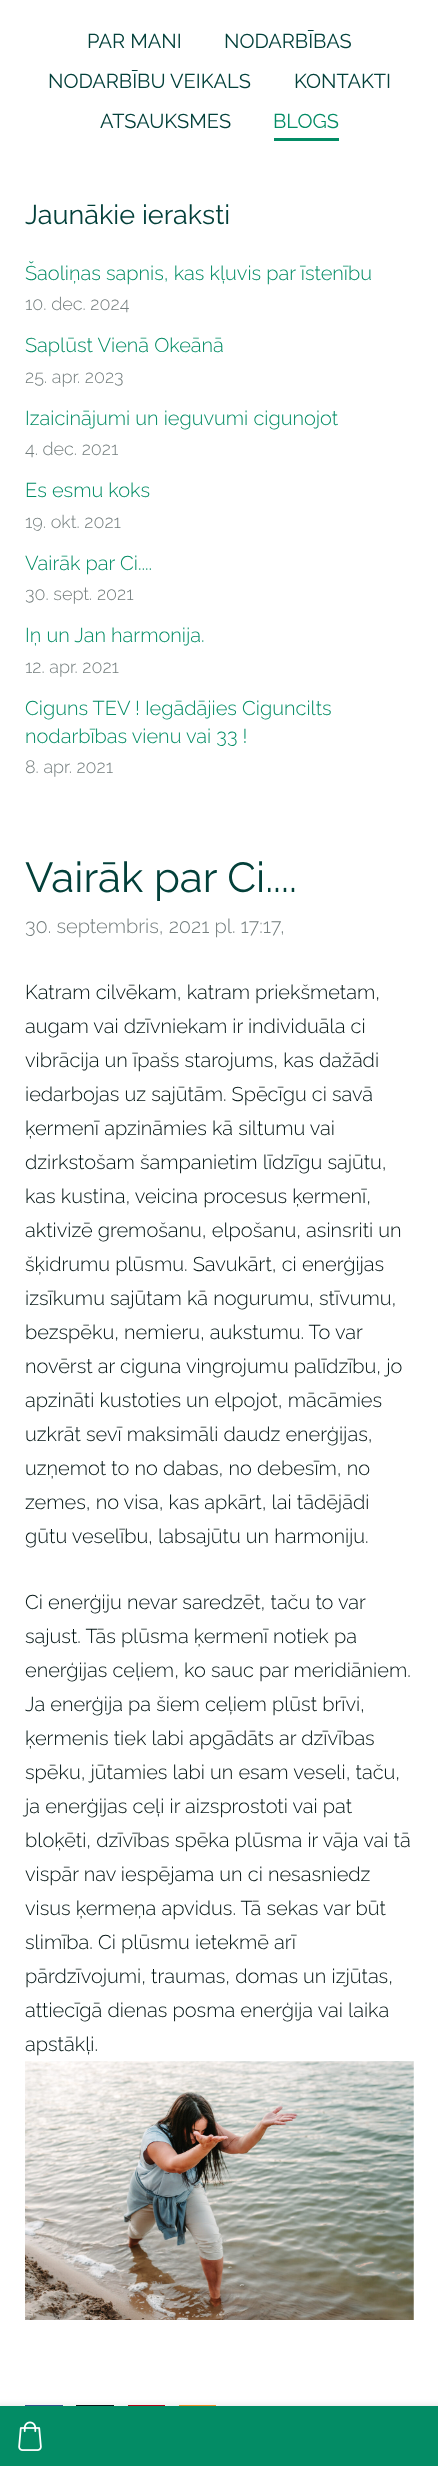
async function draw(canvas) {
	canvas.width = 438;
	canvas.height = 2466;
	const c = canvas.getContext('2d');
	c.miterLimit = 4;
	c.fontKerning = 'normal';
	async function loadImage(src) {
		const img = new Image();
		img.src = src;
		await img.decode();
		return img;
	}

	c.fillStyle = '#fff';
	c.fillRect(0, 0, 438, 2466);
	c.font = '20px Raleway';
	c.fillStyle = '#03403a';
	for (const [text, x, y] of [
		['PAR MANI', 87, 48],
		['NODARBĪBAS', 224, 48],
		['NODARBĪBU VEIKALS', 48, 88],
		['KONTAKTI', 294, 88],
		['ATSAUKSMES', 100, 128],
	]) {
		c.fillText(text, x, y);
	}
	c.fillStyle = '#038c65';
	c.fillText('BLOGS', 273, 128);
	c.fillRect(274, 138, 65, 3);
	c.font = '27px Raleway';
	c.fillStyle = '#03403a';
	c.fillText('Jaunākie ieraksti', 25, 224);
	c.font = '300 20px Raleway';
	c.fillStyle = '#038c65';
	c.fillText('Šaoliņas sapnis, kas kļuvis par īstenību', 25, 280);
	c.font = '300 18px Raleway';
	c.fillStyle = '#737d7d';
	c.fillText('10. dec. 2024', 25, 310);
	c.font = '300 20px Raleway';
	c.fillStyle = '#038c65';
	c.fillText('Saplūst Vienā Okeānā', 25, 352);
	c.font = '300 18px Raleway';
	c.fillStyle = '#737d7d';
	c.fillText('25. apr. 2023', 25, 383);
	c.font = '300 20px Raleway';
	c.fillStyle = '#038c65';
	c.fillText('Izaicinājumi un ieguvumi cigunojot', 25, 425);
	c.font = '300 18px Raleway';
	c.fillStyle = '#737d7d';
	c.fillText('4. dec. 2021', 25, 455);
	c.font = '300 20px Raleway';
	c.fillStyle = '#038c65';
	c.fillText('Es esmu koks', 25, 497);
	c.font = '300 18px Raleway';
	c.fillStyle = '#737d7d';
	c.fillText('19. okt. 2021', 25, 528);
	c.font = '300 20px Raleway';
	c.fillStyle = '#038c65';
	c.fillText('Vairāk par Ci....', 25, 570);
	c.font = '300 18px Raleway';
	c.fillStyle = '#737d7d';
	c.fillText('30. sept. 2021', 25, 600);
	c.font = '300 20px Raleway';
	c.fillStyle = '#038c65';
	c.fillText('Iņ un Jan harmonija.', 25, 642);
	c.font = '300 18px Raleway';
	c.fillStyle = '#737d7d';
	c.fillText('12. apr. 2021', 25, 673);
	c.font = '300 20px Raleway';
	c.fillStyle = '#038c65';
	c.fillText('Ciguns TEV ! Iegādājies Ciguncilts', 25, 715);
	c.fillText('nodarbības vienu vai 33 !', 25, 743);
	c.font = '300 18px Raleway';
	c.fillStyle = '#737d7d';
	c.fillText('8. apr. 2021', 25, 773);
	c.font = '42px Raleway';
	c.fillStyle = '#03403a';
	c.fillText('Vairāk par Ci....', 25, 892);
	c.font = '300 20px Raleway';
	c.fillStyle = '#737d7d';
	c.fillText('30. septembris, 2021 pl. 17:17,', 25, 933);
	c.fillStyle = '#011312';
	for (const [text, x, y] of [
		['Katram cilvēkam, katram priekšmetam,', 25, 999],
		['augam vai dzīvniekam ir individuāla ci', 25, 1033],
		['vibrācija un īpašs starojums, kas dažādi', 25, 1067],
		['iedarbojas uz sajūtām. Spēcīgu ci savā', 25, 1101],
		['ķermenī apzināmies kā siltumu vai', 25, 1135],
		['dzirkstošam šampanietim līdzīgu sajūtu,', 25, 1169],
		['kas kustina, veicina procesus ķermenī,', 25, 1203],
		['aktivizē gremošanu, elpošanu, asinsriti un', 25, 1237],
		['šķidrumu plūsmu. Savukārt, ci enerģijas', 25, 1271],
		['izsīkumu sajūtam kā nogurumu, stīvumu,', 25, 1305],
		['bezspēku, nemieru, aukstumu. To var', 25, 1339],
		['novērst ar ciguna vingrojumu palīdzību, jo', 25, 1373],
		['apzināti kustoties un elpojot, mācāmies', 25, 1407],
		['uzkrāt sevī maksimāli daudz enerģijas,', 25, 1441],
		['uzņemot to no dabas, no debesīm, no', 25, 1475],
		['zemes, no visa, kas apkārt, lai tādējādi', 25, 1509],
		['gūtu veselību, labsajūtu un harmoniju.', 25, 1543],
		['Ci enerģiju nevar saredzēt, taču to var', 25, 1609],
		['sajust. Tās plūsma ķermenī notiek pa', 25, 1643],
		['enerģijas ceļiem, ko sauc par meridiāniem.', 25, 1677],
		['Ja enerģija pa šiem ceļiem plūst brīvi,', 25, 1711],
		['ķermenis tiek labi apgādāts ar dzīvības', 25, 1745],
		['spēku, jūtamies labi un esam veseli, taču,', 25, 1779],
		['ja enerģijas ceļi ir aizsprostoti vai pat', 25, 1813],
		['bloķēti, dzīvības spēka plūsma ir vāja vai tā', 25, 1847],
		['vispār nav iespējama un ci nesasniedz', 25, 1881],
		['visus ķermeņa apvidus. Tā sekas var būt', 25, 1915],
		['slimība. Ci plūsmu ietekmē arī', 25, 1949],
		['pārdzīvojumi, traumas, domas un izjūtas,', 25, 1983],
		['attiecīgā dienas posma enerģija vai laika', 25, 2017],
		['apstākļi.', 25, 2051],
	]) {
		c.fillText(text, x, y);
	}
	c.drawImage(await loadImage('img1.png'), 25, 2061, 389, 259);
	for (const [x, y, w, h, color] of [
		[25, 2405, 38, 1, '#3a5795'],
		[76, 2405, 38, 1, '#0f1419'],
		[128, 2405, 37, 1, '#bc0618'],
		[179, 2405, 37, 1, '#fe972d'],
	]) {
		c.fillStyle = color;
		c.fillRect(x, y, w, h);
	}
	c.fillStyle = '#0000001a';
	c.filter = 'blur(3px)';
	c.beginPath();
	c.rect(-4, 2405, 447, 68);
	c.fill();
	c.filter = 'none';
	c.fillStyle = '#038c65';
	c.fillRect(0, 2406, 438, 60);
	c.drawImage(await loadImage('img2.png'), 18, 2421, 24, 30);
}

draw(document.querySelector('canvas'));
